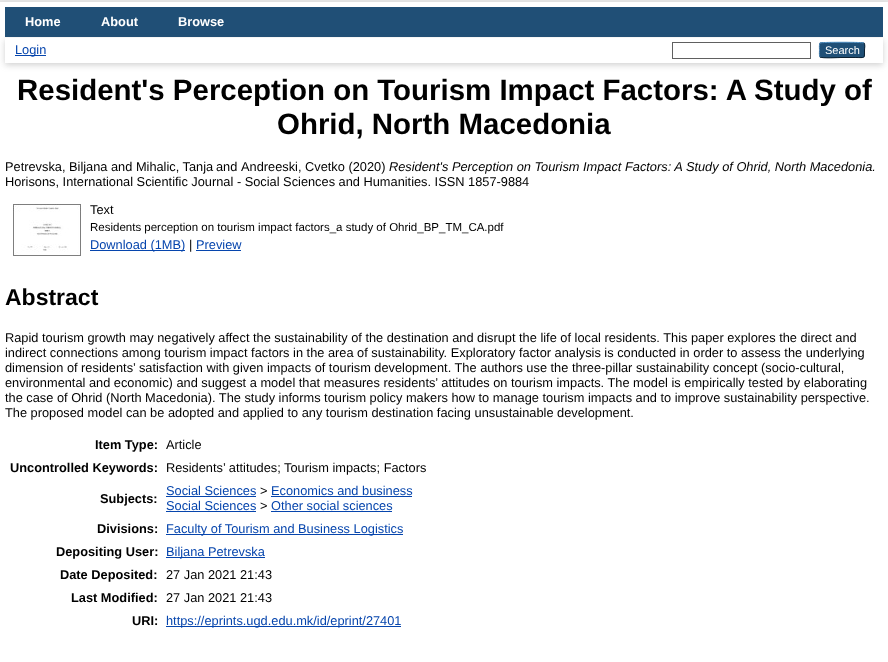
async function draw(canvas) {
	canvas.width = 888;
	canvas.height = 662;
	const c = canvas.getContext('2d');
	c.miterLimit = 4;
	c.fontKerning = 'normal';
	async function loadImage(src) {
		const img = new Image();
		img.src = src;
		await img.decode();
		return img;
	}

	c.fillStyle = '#eaeaea';
	c.fillRect(0, 0, 888, 662);
	c.fillStyle = '#6464644d';
	c.filter = 'blur(3px)';
	c.beginPath();
	c.rect(0, 4, 888, 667);
	c.fill();
	c.filter = 'none';
	c.fillStyle = '#fff';
	c.fillRect(0, 2, 888, 660);
	c.fillStyle = '#204f76';
	c.fillRect(5, 7, 878, 30);
	c.font = 'bold 12.8px Liberation Sans';
	c.fillStyle = '#fff';
	for (const [text, x, y] of [
		['Home', 25, 26],
		['About', 101, 26],
		['Browse', 178, 26],
	]) {
		c.fillText(text, x, y);
	}
	c.fillStyle = '#6464644d';
	c.filter = 'blur(3px)';
	c.beginPath();
	c.rect(5, 40, 878, 25);
	c.fill();
	c.filter = 'none';
	c.fillStyle = '#fff';
	c.fillRect(5, 38, 878, 25);
	c.fillStyle = '#0645ad';
	c.fillRect(15, 55, 31, 1);
	c.font = '12.8px Liberation Sans';
	c.fillText('Login', 15, 54);
	c.strokeStyle = '#606060';
	c.strokeRect(672.5, 42.5, 138, 16);
	c.fillStyle = '#1f4f76';
	c.beginPath();
	c.roundRect(819, 42, 46, 16, 3);
	c.fill();
	c.beginPath();
	c.moveTo(820, 43);
	c.bezierCurveTo(821.5, 42, 862.5, 42, 864, 43);
	c.strokeStyle = '#5b97c7';
	c.stroke();
	c.beginPath();
	c.moveTo(864, 43);
	c.bezierCurveTo(865.5, 45, 864.5, 48, 864.5, 50);
	c.bezierCurveTo(864.5, 59, 865, 57.5, 855.5, 57.5);
	c.lineTo(842, 57.5);
	c.bezierCurveTo(838.5, 57.5, 822, 58.5, 820, 57);
	c.strokeStyle = '#0d2131';
	c.stroke();
	c.beginPath();
	c.moveTo(820, 57);
	c.bezierCurveTo(819, 55.5, 819.5, 51.5, 819.5, 50);
	c.bezierCurveTo(819.5, 48.5, 819, 44.5, 820, 43);
	c.strokeStyle = '#5287b3';
	c.stroke();
	c.font = '11px Liberation Sans';
	c.fillStyle = '#fff';
	c.fillText('Search', 825, 54);
	c.font = 'bold 29.45px Liberation Sans';
	c.fillStyle = '#000';
	c.fillText('Resident\'s Perception on Tourism Impact Factors: A Study of', 17, 100);
	c.fillText('Ohrid, North Macedonia', 277, 134);
	c.font = '12.8px Liberation Sans';
	for (const [text, x, y] of [
		['Petrevska, Biljana and Mihalic, Tanja', 5, 171],
		['and', 216, 171],
		['Andreeski, Cvetko (2020)', 241, 171],
	]) {
		c.fillText(text, x, y);
	}
	c.font = 'italic 12.8px Liberation Sans';
	c.fillText('Resident\'s Perception on Tourism Impact Factors: A Study of Ohrid, North Macedonia.', 389, 171);
	c.font = '12.8px Liberation Sans';
	c.fillText('Horisons, International Scientific Journal - Social Sciences and Humanities. ISSN 1857-9884', 5, 186);
	c.drawImage(await loadImage('img1.png'), 13, 204, 68, 52);
	c.fillText('Text', 90, 214);
	c.font = '11.5px Liberation Sans';
	c.fillText('Residents perception on tourism impact factors_a study of Ohrid_BP_TM_CA.pdf', 90, 231);
	c.fillStyle = '#0645ad';
	c.fillRect(90, 250, 95, 1);
	c.font = '12.8px Liberation Sans';
	c.fillText('Download (1MB)', 90, 249);
	c.fillStyle = '#000';
	c.fillText('|', 189, 249);
	c.fillStyle = '#0645ad';
	c.fillText('Preview', 196, 249);
	c.fillRect(196, 250, 45, 1);
	c.font = 'bold 23px Liberation Sans';
	c.fillStyle = '#000';
	c.fillText('Abstract', 5, 305);
	c.font = '12.8px Liberation Sans';
	for (const [text, x, y] of [
		['Rapid tourism growth may negatively affect the sustainability of the destination and disrupt the life of local residents. This paper explores the direct and', 5, 342],
		['indirect connections among tourism impact factors in the area of sustainability. Exploratory factor analysis is conducted in order to assess the underlying', 5, 357],
		['dimension of residents’ satisfaction with given impacts of tourism development. The authors use the three-pillar sustainability concept (socio-cultural,', 5, 372],
		['environmental and economic) and suggest a model that measures residents’ attitudes on tourism impacts. The model is empirically tested by elaborating', 5, 387],
		['the case of Ohrid (North Macedonia). The study informs tourism policy makers how to manage tourism impacts and to improve sustainability perspective.', 5, 402],
		['The proposed model can be adopted and applied to any tourism destination facing unsustainable development.', 5, 417],
	]) {
		c.fillText(text, x, y);
	}
	c.font = 'bold 12.8px Liberation Sans';
	c.fillText('Item Type:', 95, 449);
	c.font = '12.8px Liberation Sans';
	c.fillText('Article', 166, 449);
	c.font = 'bold 12.8px Liberation Sans';
	c.fillText('Uncontrolled Keywords:', 10, 472);
	c.font = '12.8px Liberation Sans';
	c.fillText('Residents’ attitudes; Tourism impacts; Factors', 166, 472);
	c.font = 'bold 12.8px Liberation Sans';
	c.fillText('Subjects:', 100, 503);
	c.font = '12.8px Liberation Sans';
	c.fillStyle = '#0645ad';
	c.fillText('Social Sciences', 166, 495);
	c.fillRect(166, 496, 90, 1);
	c.fillStyle = '#000';
	c.fillText('>', 260, 495);
	c.fillStyle = '#0645ad';
	c.fillText('Economics and business', 271, 495);
	c.fillRect(271, 496, 141, 1);
	c.fillText('Social Sciences', 166, 510);
	c.fillRect(166, 511, 90, 1);
	c.fillStyle = '#000';
	c.fillText('>', 260, 510);
	c.fillStyle = '#0645ad';
	c.fillText('Other social sciences', 271, 510);
	c.fillRect(271, 511, 121, 1);
	c.font = 'bold 12.8px Liberation Sans';
	c.fillStyle = '#000';
	c.fillText('Divisions:', 97, 533);
	c.fillStyle = '#0645ad';
	c.fillRect(166, 534, 237, 1);
	c.font = '12.8px Liberation Sans';
	c.fillText('Faculty of Tourism and Business Logistics', 166, 533);
	c.font = 'bold 12.8px Liberation Sans';
	c.fillStyle = '#000';
	c.fillText('Depositing User:', 56, 556);
	c.fillStyle = '#0645ad';
	c.fillRect(166, 557, 99, 1);
	c.font = '12.8px Liberation Sans';
	c.fillText('Biljana Petrevska', 166, 556);
	c.font = 'bold 12.8px Liberation Sans';
	c.fillStyle = '#000';
	c.fillText('Date Deposited:', 60, 579);
	c.font = '12.8px Liberation Sans';
	c.fillText('27 Jan 2021 21:43', 166, 579);
	c.font = 'bold 12.8px Liberation Sans';
	c.fillText('Last Modified:', 71, 602);
	c.font = '12.8px Liberation Sans';
	c.fillText('27 Jan 2021 21:43', 166, 602);
	c.font = 'bold 12.8px Liberation Sans';
	c.fillText('URI:', 132, 625);
	c.fillStyle = '#0645ad';
	c.fillRect(166, 626, 235, 1);
	c.font = '12.8px Liberation Sans';
	c.fillText('https://eprints.ugd.edu.mk/id/eprint/27401', 166, 625);
}

draw(document.querySelector('canvas'));
